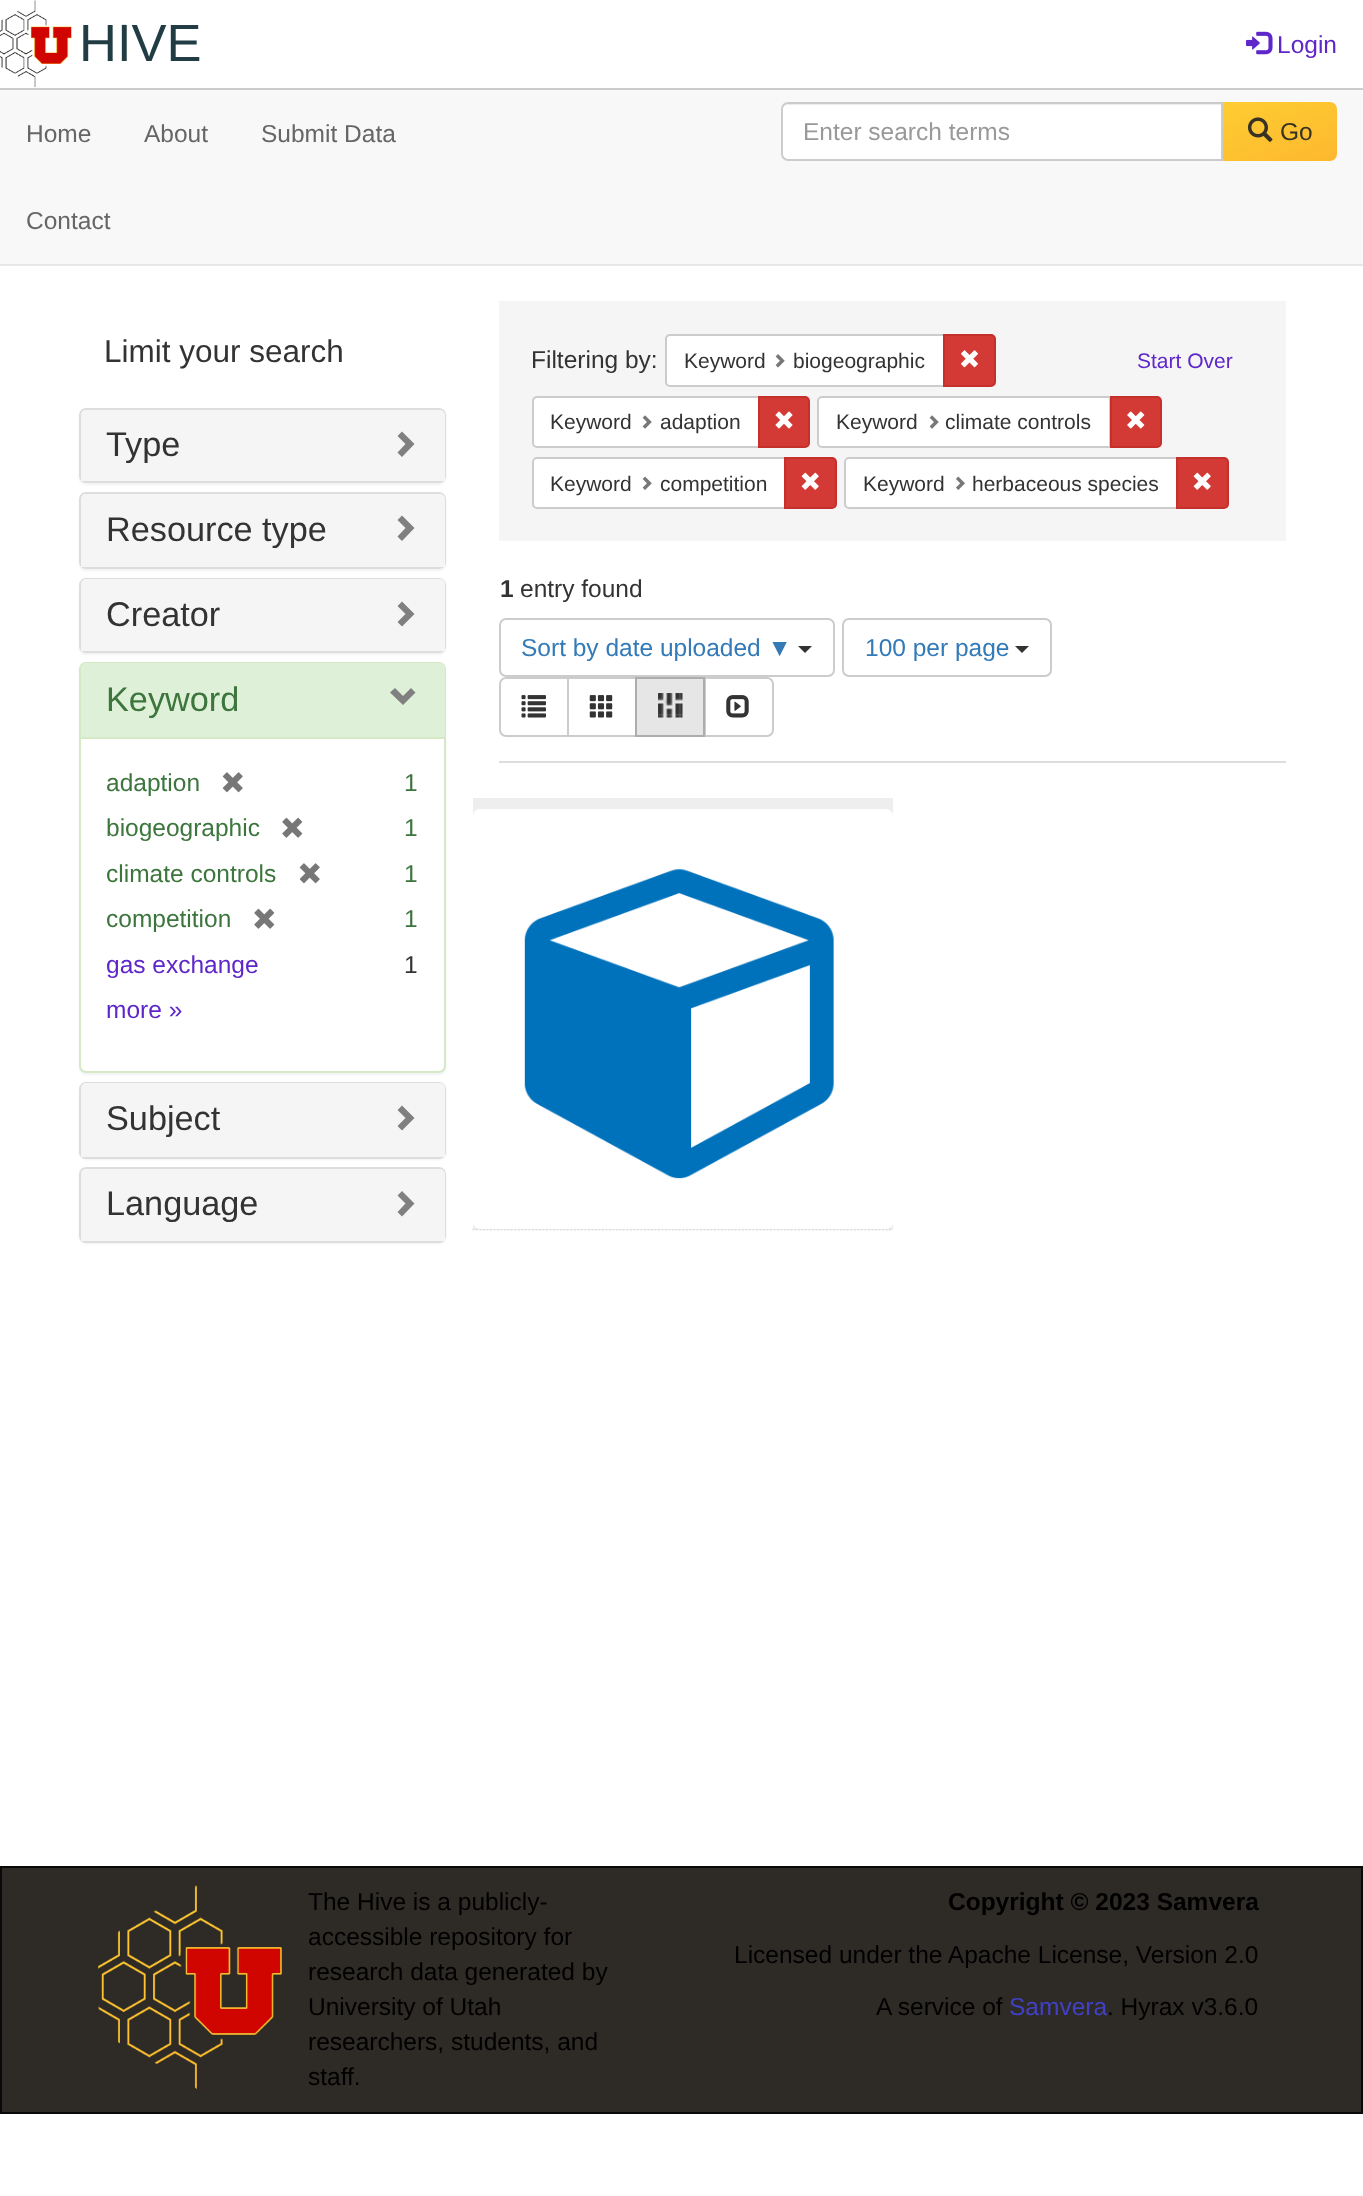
async function draw(canvas) {
	canvas.width = 1363;
	canvas.height = 2196;
	const c = canvas.getContext('2d');
	c.miterLimit = 4;
	c.fontKerning = 'normal';
	async function loadImage(src) {
		const img = new Image();
		img.src = src;
		await img.decode();
		return img;
	}
	let gradient;

	c.fillStyle = '#fff';
	c.fillRect(0, 0, 1363, 2196);
	c.fillStyle = '#ccc';
	c.fillRect(0, 88, 1363, 2);
	c.drawImage(await loadImage('img1.png'), 0, 0, 72, 88);
	c.font = '52.5px Liberation Sans';
	c.fillStyle = '#213d43';
	c.fillText('HIVE', 79, 61);
	c.drawImage(await loadImage('img2.png'), 1246, 31, 27, 24);
	c.font = '24.5px Liberation Sans';
	c.fillStyle = '#5f26c9';
	c.fillText('Login', 1277, 53);
	c.fillStyle = '#f8f8f8';
	c.fillRect(0, 90, 1363, 174);
	c.fillStyle = '#e7e7e7';
	c.fillRect(0, 264, 1363, 2);
	c.fillStyle = '#666';
	for (const [text, x, y] of [
		['Home', 26, 142],
		['About', 144, 142],
		['Submit Data', 261, 142],
		['Contact', 26, 229],
	]) {
		c.fillText(text, x, y);
	}
	c.fillStyle = '#fff';
	c.beginPath();
	c.roundRect(781, 102, 442, 59, [7, 0, 0, 7]);
	c.fill();
	c.fillStyle = '#ececec';
	c.beginPath();
	c.moveTo(788, 105);
	c.lineTo(1222, 105);
	c.lineTo(1222, 103);
	c.lineTo(787, 103);
	c.bezierCurveTo(783, 103, 782, 107, 782, 110);
	c.bezierCurveTo(782, 107, 785, 105, 788, 105);
	c.closePath();
	c.fill();
	c.beginPath();
	c.roundRect(782, 103, 440, 57, [6, 0, 0, 6]);
	c.strokeStyle = '#ccc';
	c.lineWidth = 2;
	c.stroke();
	c.fillStyle = '#999';
	c.fillText('Enter search terms', 803, 140);
	gradient = c.createLinearGradient(1263, 86, 1297, 176);
	gradient.addColorStop(0, '#fecd32');
	gradient.addColorStop(1, '#fdb82e');
	c.fillStyle = gradient;
	c.beginPath();
	c.roundRect(1223, 102, 114, 59, [0, 7, 7, 0]);
	c.fill();
	c.drawImage(await loadImage('img3.png'), 1247, 117, 26, 25);
	c.fillStyle = '#373223';
	c.fillText('Go', 1280, 140);
	c.font = '31.5px Liberation Sans';
	c.fillStyle = '#333';
	c.fillText('Limit your search', 104, 362);
	c.fillStyle = '#0000000d';
	c.filter = 'blur(1px)';
	c.beginPath();
	c.roundRect(79, 410, 367, 75, 7);
	c.fill();
	c.filter = 'none';
	c.beginPath();
	c.roundRect(80, 409, 365, 73, 6);
	c.strokeStyle = '#ddd';
	c.stroke();
	c.fillStyle = '#f5f5f5';
	c.beginPath();
	c.roundRect(81, 410, 364, 71, [5, 5, 0, 0]);
	c.fill();
	c.font = '34.25px Liberation Sans';
	c.fillStyle = '#333';
	c.fillText('Type', 106, 456);
	c.fillStyle = '#808080';
	c.beginPath();
	c.moveTo(414.5, 444);
	c.lineTo(402, 457);
	c.lineTo(397.5, 452.5);
	c.lineTo(405.5, 444);
	c.lineTo(397.5, 436);
	c.lineTo(402, 431.5);
	c.closePath();
	c.fill();
	c.fillStyle = '#0000000d';
	c.filter = 'blur(1px)';
	c.beginPath();
	c.roundRect(79, 494, 367, 77, 7);
	c.fill();
	c.filter = 'none';
	c.beginPath();
	c.roundRect(80, 493, 365, 75, 6);
	c.stroke();
	c.fillStyle = '#f5f5f5';
	c.beginPath();
	c.roundRect(81, 494, 364, 73, [5, 5, 0, 0]);
	c.fill();
	c.fillStyle = '#333';
	c.fillText('Resource type', 106, 541);
	c.fillStyle = '#808080';
	c.beginPath();
	c.moveTo(414.5, 528);
	c.lineTo(402, 541);
	c.lineTo(397.5, 536.5);
	c.lineTo(405.5, 528);
	c.lineTo(397.5, 520);
	c.lineTo(402, 515.5);
	c.closePath();
	c.fill();
	c.fillStyle = '#0000000d';
	c.filter = 'blur(1px)';
	c.beginPath();
	c.roundRect(79, 579, 367, 76, 7);
	c.fill();
	c.filter = 'none';
	c.beginPath();
	c.roundRect(80, 579, 365, 73, 6);
	c.stroke();
	c.fillStyle = '#f5f5f5';
	c.beginPath();
	c.roundRect(81, 579, 364, 72, [5, 5, 0, 0]);
	c.fill();
	c.fillStyle = '#333';
	c.fillText('Creator', 106, 626);
	c.fillStyle = '#808080';
	c.beginPath();
	c.moveTo(414.5, 614);
	c.lineTo(402, 626.5);
	c.lineTo(397.5, 622);
	c.lineTo(405.5, 614);
	c.lineTo(397.5, 606);
	c.lineTo(402, 601.5);
	c.closePath();
	c.fill();
	c.fillStyle = '#0000000d';
	c.filter = 'blur(1px)';
	c.beginPath();
	c.roundRect(79, 663, 367, 412, 7);
	c.fill();
	c.filter = 'none';
	c.fillStyle = '#fff';
	c.beginPath();
	c.roundRect(80, 663, 365, 409, 6);
	c.fill();
	c.strokeStyle = '#d6e9c6';
	c.stroke();
	c.fillStyle = '#dff0d8';
	c.beginPath();
	c.roundRect(81, 663, 364, 74, [5, 5, 0, 0]);
	c.fill();
	c.fillStyle = '#3c763d';
	c.fillText('Keyword', 106, 711);
	c.fillStyle = '#808080';
	c.beginPath();
	c.moveTo(415.5, 692.5);
	c.lineTo(403, 705);
	c.lineTo(390, 692.5);
	c.lineTo(395, 688);
	c.lineTo(403, 696);
	c.lineTo(411, 688);
	c.closePath();
	c.fill();
	c.fillStyle = '#d6e9c6';
	c.fillRect(81, 737, 364, 2);
	c.font = '24.5px Liberation Sans';
	c.fillStyle = '#3c763d';
	c.fillText('adaption', 106, 791);
	c.drawImage(await loadImage('img4.png'), 222, 772, 21, 21);
	c.fillText('1', 404, 791);
	c.fillText('biogeographic', 106, 836);
	c.drawImage(await loadImage('img5.png'), 282, 817, 21, 21);
	c.fillText('1', 404, 836);
	c.fillText('climate controls', 106, 882);
	c.drawImage(await loadImage('img4.png'), 299, 863, 21, 21);
	c.fillText('1', 404, 882);
	c.fillText('competition', 106, 927);
	c.drawImage(await loadImage('img5.png'), 254, 908, 21, 21);
	c.fillText('1', 404, 927);
	c.fillStyle = '#5f26c9';
	c.fillText('gas exchange', 106, 973);
	c.fillStyle = '#333';
	c.fillText('1', 404, 973);
	c.fillStyle = '#5f26c9';
	c.fillText('more »', 106, 1018);
	c.fillStyle = '#0000000d';
	c.filter = 'blur(1px)';
	c.beginPath();
	c.roundRect(79, 1083, 367, 77, 7);
	c.fill();
	c.filter = 'none';
	c.beginPath();
	c.roundRect(80, 1083, 365, 75, 6);
	c.strokeStyle = '#ddd';
	c.stroke();
	c.fillStyle = '#f5f5f5';
	c.beginPath();
	c.roundRect(81, 1083, 364, 74, [5, 5, 0, 0]);
	c.fill();
	c.font = '34.25px Liberation Sans';
	c.fillStyle = '#333';
	c.fillText('Subject', 106, 1130);
	c.fillStyle = '#808080';
	c.beginPath();
	c.moveTo(414.5, 1118);
	c.lineTo(402, 1130.5);
	c.lineTo(397.5, 1126);
	c.lineTo(405.5, 1118);
	c.lineTo(397.5, 1110);
	c.lineTo(402, 1105.5);
	c.closePath();
	c.fill();
	c.fillStyle = '#0000000d';
	c.filter = 'blur(1px)';
	c.beginPath();
	c.roundRect(79, 1169, 367, 75, 7);
	c.fill();
	c.filter = 'none';
	c.beginPath();
	c.roundRect(80, 1168, 365, 74, 6);
	c.stroke();
	c.fillStyle = '#f5f5f5';
	c.beginPath();
	c.roundRect(81, 1169, 364, 72, [5, 5, 0, 0]);
	c.fill();
	c.fillStyle = '#333';
	c.fillText('Language', 106, 1215);
	c.fillStyle = '#808080';
	c.beginPath();
	c.moveTo(414.5, 1203.5);
	c.lineTo(402, 1216.5);
	c.lineTo(397.5, 1212);
	c.lineTo(405.5, 1203.5);
	c.lineTo(397.5, 1195.5);
	c.lineTo(402, 1191);
	c.closePath();
	c.fill();
	c.fillStyle = '#f5f5f5';
	c.fillRect(499, 301, 787, 240);
	c.font = '24.5px Liberation Sans';
	c.fillStyle = '#333';
	c.fillText('Filtering by:', 531, 368);
	c.fillStyle = '#fff';
	c.beginPath();
	c.roundRect(666, 335, 278, 51, [4, 0, 0, 4]);
	c.fill();
	c.strokeStyle = '#ccc';
	c.stroke();
	c.font = '21px Liberation Sans';
	c.fillStyle = '#333';
	c.fillText('Keyword', 684, 368);
	c.drawImage(await loadImage('img6.png'), 775, 354, 10, 14);
	c.fillText('biogeographic', 793, 368);
	c.fillStyle = '#d33a35';
	c.beginPath();
	c.roundRect(944, 335, 51, 51, [0, 4, 4, 0]);
	c.fill();
	c.strokeStyle = '#c4302b';
	c.stroke();
	c.drawImage(await loadImage('img7.png'), 961, 350, 17, 18);
	c.fillStyle = '#5f26c9';
	c.fillText('Start Over', 1137, 368);
	c.fillStyle = '#fff';
	c.beginPath();
	c.roundRect(533, 397, 226, 50, [4, 0, 0, 4]);
	c.fill();
	c.strokeStyle = '#ccc';
	c.stroke();
	c.fillStyle = '#333';
	c.fillText('Keyword', 550, 429);
	c.drawImage(await loadImage('img8.png'), 642, 415, 10, 14);
	c.fillText('adaption', 660, 429);
	c.fillStyle = '#d33a35';
	c.beginPath();
	c.roundRect(759, 397, 50, 50, [0, 4, 4, 0]);
	c.fill();
	c.strokeStyle = '#c4302b';
	c.stroke();
	c.drawImage(await loadImage('img9.png'), 775, 411, 18, 18);
	c.fillStyle = '#fff';
	c.beginPath();
	c.roundRect(818, 397, 292, 50, [4, 0, 0, 4]);
	c.fill();
	c.strokeStyle = '#ccc';
	c.stroke();
	c.fillStyle = '#333';
	c.fillText('Keyword', 836, 429);
	c.drawImage(await loadImage('img8.png'), 929, 415, 10, 14);
	c.fillText('climate controls', 945, 429);
	c.fillStyle = '#d33a35';
	c.beginPath();
	c.roundRect(1111, 397, 50, 50, [0, 4, 4, 0]);
	c.fill();
	c.strokeStyle = '#c4302b';
	c.stroke();
	c.drawImage(await loadImage('img10.png'), 1127, 411, 18, 18);
	c.fillStyle = '#fff';
	c.beginPath();
	c.roundRect(533, 458, 252, 50, [4, 0, 0, 4]);
	c.fill();
	c.strokeStyle = '#ccc';
	c.stroke();
	c.fillStyle = '#333';
	c.fillText('Keyword', 550, 491);
	c.drawImage(await loadImage('img11.png'), 642, 476, 10, 14);
	c.fillText('competition', 660, 491);
	c.fillStyle = '#d33a35';
	c.beginPath();
	c.roundRect(785, 458, 51, 50, [0, 4, 4, 0]);
	c.fill();
	c.strokeStyle = '#c4302b';
	c.stroke();
	c.drawImage(await loadImage('img12.png'), 801, 472, 18, 18);
	c.fillStyle = '#fff';
	c.beginPath();
	c.roundRect(845, 458, 332, 50, [4, 0, 0, 4]);
	c.fill();
	c.strokeStyle = '#ccc';
	c.stroke();
	c.fillStyle = '#333';
	c.fillText('Keyword', 863, 491);
	c.drawImage(await loadImage('img13.png'), 956, 476, 9, 14);
	c.fillText('herbaceous species', 972, 491);
	c.fillStyle = '#d33a35';
	c.beginPath();
	c.roundRect(1177, 458, 51, 50, [0, 4, 4, 0]);
	c.fill();
	c.strokeStyle = '#c4302b';
	c.stroke();
	c.drawImage(await loadImage('img12.png'), 1193, 472, 18, 18);
	c.fillStyle = '#ddd';
	c.fillRect(499, 761, 787, 2);
	c.font = 'bold 24.5px Liberation Sans';
	c.fillStyle = '#333';
	c.fillText('1', 500, 597);
	c.font = '24.5px Liberation Sans';
	c.fillText('entry found', 520, 597);
	c.beginPath();
	c.roundRect(500, 619, 334, 57, 6);
	c.strokeStyle = '#ccc';
	c.stroke();
	c.fillStyle = '#337ab7';
	c.fillText('Sort by date uploaded ▼', 521, 656);
	c.fillStyle = '#333';
	c.beginPath();
	c.moveTo(798, 646);
	c.lineTo(812, 646);
	c.lineTo(805, 653);
	c.closePath();
	c.fill();
	c.beginPath();
	c.roundRect(843, 619, 208, 57, 6);
	c.stroke();
	c.fillStyle = '#337ab7';
	c.fillText('100 per page', 865, 656);
	c.fillStyle = '#333';
	c.beginPath();
	c.moveTo(1015, 646);
	c.lineTo(1029, 646);
	c.lineTo(1022, 653);
	c.closePath();
	c.fill();
	c.beginPath();
	c.roundRect(500, 678, 68, 58, [6, 0, 0, 6]);
	c.stroke();
	c.drawImage(await loadImage('img14.png'), 521, 695, 25, 23);
	c.strokeRect(568, 678, 68, 58);
	c.drawImage(await loadImage('img15.png'), 589, 695, 24, 23);
	c.beginPath();
	c.roundRect(705, 678, 68, 58, [0, 6, 6, 0]);
	c.stroke();
	c.fillStyle = '#e6e6e6';
	c.beginPath();
	c.rect(636, 678, 68, 58);
	c.fill();
	c.strokeStyle = '#adadad';
	c.stroke();
	c.drawImage(await loadImage('img16.png'), 658, 693, 25, 25);
	c.drawImage(await loadImage('img17.png'), 726, 695, 23, 23);
	c.fillStyle = '#eee';
	c.fillRect(473, 798, 420, 432);
	c.beginPath();
	c.moveTo(472.5, 1229.5);
	c.lineTo(892.5, 1229.5);
	c.strokeStyle = '#ddd';
	c.lineWidth = 1.8;
	c.setLineDash([1.75, 1.75]);
	c.stroke();
	c.fillStyle = '#fff';
	c.beginPath();
	c.roundRect(473, 809, 420, 420, 7);
	c.fill();
	c.drawImage(await loadImage('img18.png'), 524, 869, 310, 310);
	c.fillStyle = '#2e2b27';
	c.beginPath();
	c.rect(1, 1867, 1361, 246);
	c.fill();
	c.strokeStyle = '#090909';
	c.lineWidth = 2;
	c.setLineDash([]);
	c.stroke();
	c.drawImage(await loadImage('img19.png'), 98, 1885, 184, 205);
	c.fillStyle = '#000';
	for (const [text, x, y] of [
		['The Hive is a publicly-', 308, 1910],
		['accessible repository for', 308, 1945],
		['research data generated by', 308, 1980],
		['University of Utah', 308, 2015],
		['researchers, students, and', 308, 2050],
		['staff.', 308, 2085],
	]) {
		c.fillText(text, x, y);
	}
	c.font = 'bold 24.5px Liberation Sans';
	c.fillText('Copyright © 2023 Samvera', 948, 1910);
	c.font = '24.5px Liberation Sans';
	c.fillText('Licensed under the Apache License, Version 2.0', 734, 1963);
	c.fillText('A service of', 876, 2015);
	c.fillStyle = '#4240c4';
	c.fillText('Samvera', 1009, 2015);
	c.fillStyle = '#000';
	c.fillText('. Hyrax v3.6.0', 1107, 2015);
}

draw(document.querySelector('canvas'));
